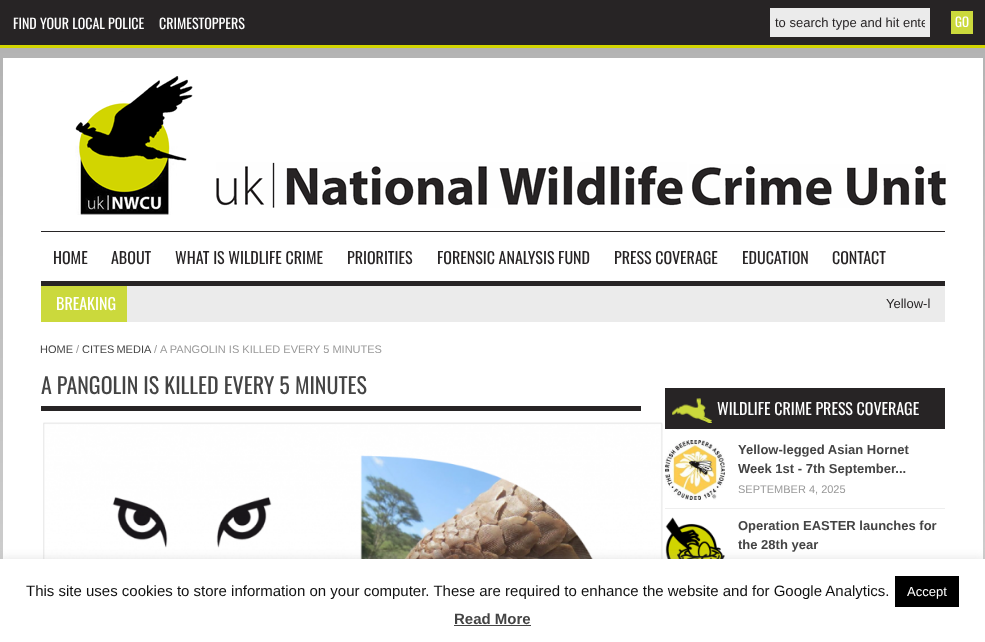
async function draw(canvas) {
	canvas.width = 985;
	canvas.height = 642;
	const c = canvas.getContext('2d');
	c.miterLimit = 4;
	c.fontKerning = 'normal';
	async function loadImage(src) {
		const img = new Image();
		img.src = src;
		await img.decode();
		return img;
	}

	c.fillStyle = '#fff';
	c.fillRect(0, 0, 985, 642);
	c.drawImage(await loadImage('img1.png'), 0, 48, 985, 511);
	c.fillStyle = '#272425';
	c.fillRect(0, 0, 985, 45);
	c.fillStyle = '#d2d500';
	c.fillRect(0, 45, 985, 3);
	c.font = '14px Oswald';
	c.fillStyle = '#fff';
	c.fillText('FIND YOUR LOCAL POLICE', 13, 29);
	c.fillText('CRIMESTOPPERS', 159, 29);
	c.fillStyle = '#ebebeb';
	c.fillRect(770, 8, 160, 29);
	c.save();
	c.beginPath();
	c.rect(775, 15, 150, 15);
	c.clip();
	c.font = '13px Liberation Sans';
	c.fillStyle = '#272425';
	c.fillText('to search type and hit ente', 775, 27);
	c.restore();
	c.fillStyle = '#cbd93c';
	c.fillRect(951, 11, 22, 23);
	c.font = '13px Oswald';
	c.fillStyle = '#fff';
	c.fillText('GO', 955, 27);
	c.fillRect(3, 58, 980, 501);
	c.drawImage(await loadImage('img2.png'), 75, 76, 118, 139);
	c.drawImage(await loadImage('img3.png'), 216, 162, 730, 46);
	c.fillStyle = '#272425';
	c.fillRect(41, 231, 904, 1);
	c.fillRect(41, 281, 904, 5);
	c.font = '16px Oswald';
	for (const [text, x, y] of [
		['HOME', 53, 264],
		['ABOUT', 111, 264],
		['WHAT IS WILDLIFE CRIME', 175, 264],
		['PRIORITIES', 347, 264],
		['FORENSIC ANALYSIS FUND', 437, 264],
		['PRESS COVERAGE', 614, 264],
		['EDUCATION', 742, 264],
		['CONTACT', 832, 264],
	]) {
		c.fillText(text, x, y);
	}
	c.fillStyle = '#ebebeb';
	c.fillRect(127, 286, 818, 36);
	c.fillStyle = '#cbd93c';
	c.fillRect(41, 286, 86, 36);
	c.fillStyle = '#fff';
	c.fillText('BREAKING', 56, 310);
	c.font = '13px Liberation Sans';
	c.fillStyle = '#272425';
	c.fillText('Yellow-l', 886, 308);
	c.font = '11px Liberation Sans';
	c.fillStyle = '#444';
	c.fillText('HOME', 40, 353);
	c.fillStyle = '#999';
	c.fillText('/', 76, 353);
	c.wordSpacing = '-1px';
	c.fillStyle = '#444';
	c.fillText('CITES MEDIA', 82, 353);
	c.wordSpacing = '0px';
	c.fillStyle = '#999';
	c.fillText('/', 154, 353);
	c.fillText('A PANGOLIN IS KILLED EVERY 5 MINUTES', 160, 353);
	c.fillStyle = '#272425';
	c.fillRect(41, 406, 600, 5);
	c.font = '22px Oswald';
	c.fillStyle = '#444';
	c.fillText('A PANGOLIN IS KILLED EVERY 5 MINUTES', 41, 394);
	c.drawImage(await loadImage('img4.png'), 43, 422, 620, 137);
	c.fillStyle = '#272425';
	c.fillRect(665, 388, 280, 41);
	c.drawImage(await loadImage('img5.png'), 672, 398, 40, 25);
	c.font = '16px Oswald';
	c.fillStyle = '#fff';
	c.fillText('WILDLIFE CRIME PRESS COVERAGE', 717, 415);
	c.fillStyle = '#eee';
	c.fillRect(665, 508, 280, 1);
	c.drawImage(await loadImage('img6.png'), 665, 440, 60, 60);
	c.font = 'bold 13px Liberation Sans';
	c.fillStyle = '#444';
	c.fillText('Yellow-legged Asian Hornet', 738, 454);
	c.fillText('Week 1st - 7th September...', 738, 473);
	c.font = '11px Liberation Sans';
	c.fillStyle = '#999';
	c.fillText('SEPTEMBER 4, 2025', 738, 493);
	c.drawImage(await loadImage('img7.png'), 665, 517, 60, 42);
	c.font = 'bold 13px Liberation Sans';
	c.fillStyle = '#444';
	c.fillText('Operation EASTER launches for', 738, 530);
	c.fillText('the 28th year', 738, 549);
	c.fillStyle = '#acabab4d';
	c.filter = 'blur(5px)';
	c.beginPath();
	c.rect(0, 558, 985, 83);
	c.fill();
	c.filter = 'none';
	c.fillStyle = '#fff';
	c.fillRect(0, 559, 985, 83);
	c.font = '15px Liberation Sans';
	c.fillStyle = '#101010';
	c.fillText('This site uses cookies to store information on your computer. These are required to enhance the website and for Google Analytics.', 26, 596);
	c.fillStyle = '#000';
	c.fillRect(895, 576, 64, 31);
	c.font = '13px Liberation Sans';
	c.fillStyle = '#fff';
	c.fillText('Accept', 907, 596);
	c.font = 'bold 15px Liberation Sans';
	c.fillStyle = '#444';
	c.fillText('Read More', 454, 624);
	c.fillRect(454, 625, 77, 1);
}

draw(document.querySelector('canvas'));
